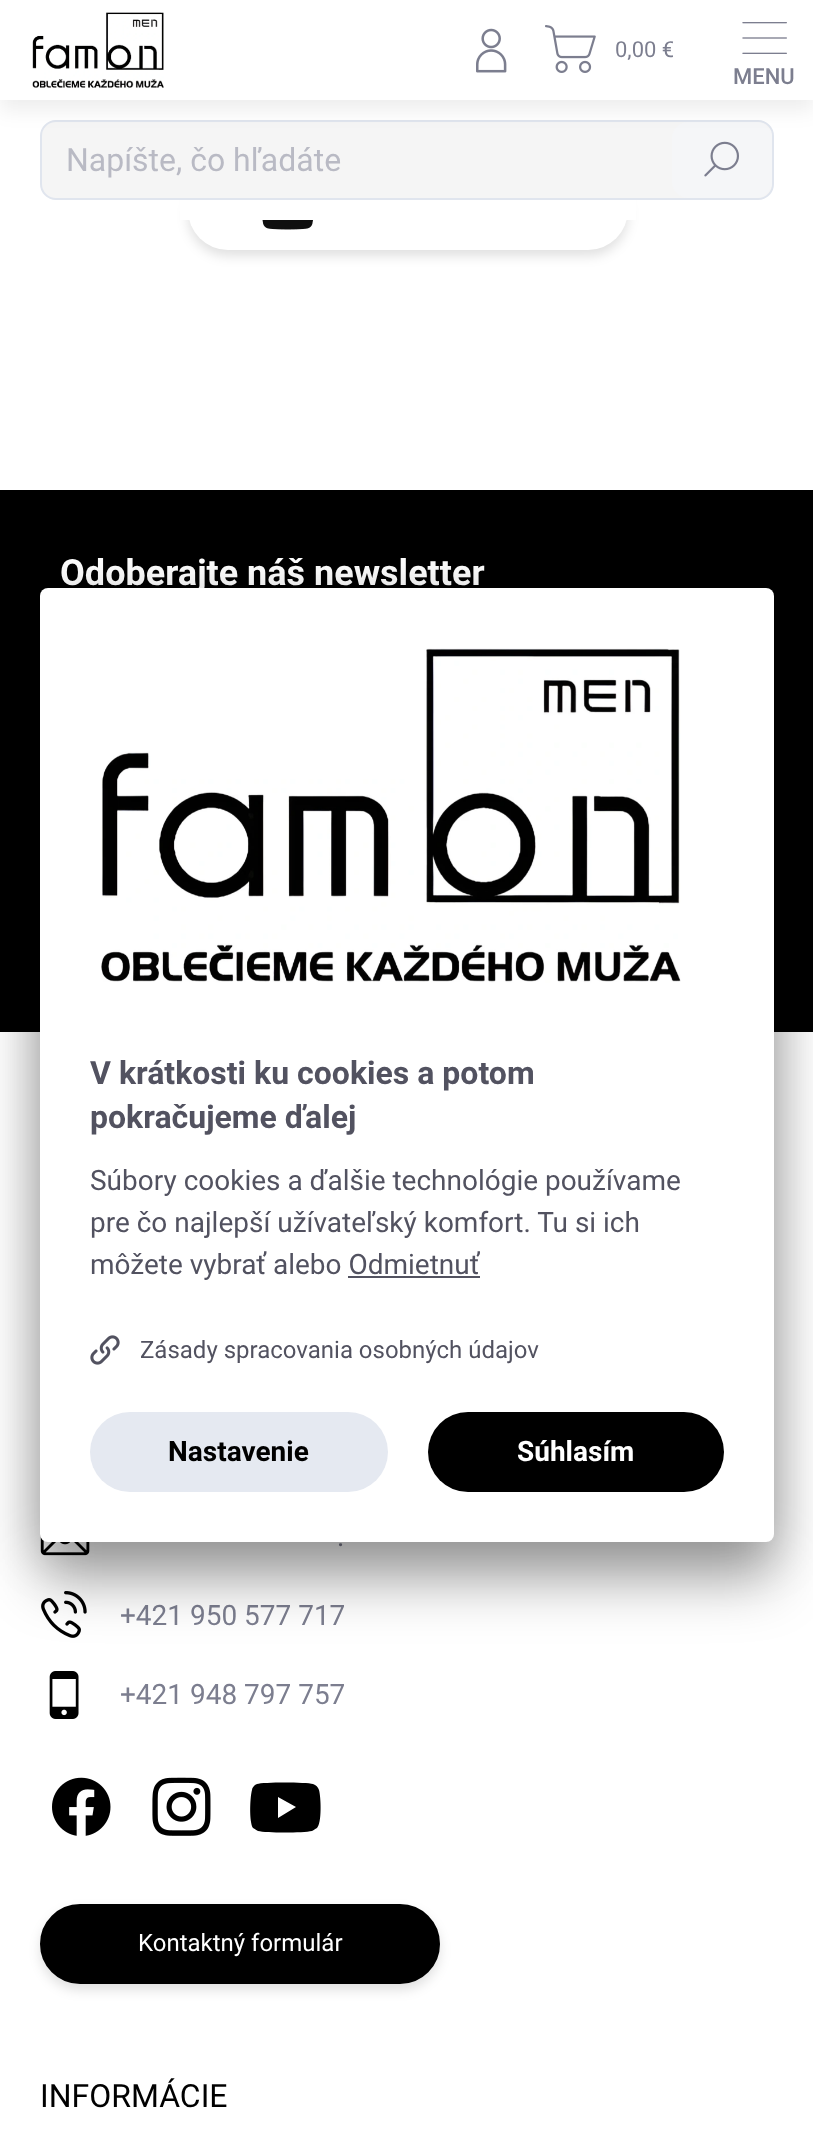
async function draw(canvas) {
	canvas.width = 813;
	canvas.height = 2130;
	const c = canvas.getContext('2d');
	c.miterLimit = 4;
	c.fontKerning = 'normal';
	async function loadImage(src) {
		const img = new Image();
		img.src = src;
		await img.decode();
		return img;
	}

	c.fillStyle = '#fff';
	c.fillRect(0, 0, 813, 2130);
	c.fillStyle = '#0000001f';
	c.filter = 'blur(6px)';
	c.beginPath();
	c.roundRect(188, 176, 440, 80, 40);
	c.fill();
	c.filter = 'none';
	c.fillStyle = '#fff';
	c.beginPath();
	c.roundRect(188, 170, 440, 80, 40);
	c.fill();
	c.fillRect(180, 168, 456, 52);
	c.fillStyle = '#f5f5f5';
	c.beginPath();
	c.roundRect(41, 121, 732, 78, 15);
	c.fill();
	c.strokeStyle = '#e0e5ee';
	c.lineWidth = 2;
	c.stroke();
	c.fillStyle = '#f5f6f8';
	c.beginPath();
	c.roundRect(672, 122, 100, 76, 16);
	c.fill();
	c.fillStyle = '#00000012';
	c.filter = 'blur(10px)';
	c.beginPath();
	c.rect(0, 10, 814, 100);
	c.fill();
	c.filter = 'none';
	c.fillStyle = '#fff';
	c.fillRect(0, 0, 813, 100);
	c.drawImage(await loadImage('img1.png'), 32, 12, 132, 76);
	c.drawImage(await loadImage('img2.png'), 476, 28, 31, 45);
	c.drawImage(await loadImage('img3.png'), 545, 25, 51, 48);
	c.font = '22px Roboto';
	c.fillStyle = '#7c7e8f';
	c.fillText('0,00 €', 615, 57);
	c.drawImage(await loadImage('img4.png'), 742, 22, 45, 32);
	c.font = '500 22px Roboto';
	c.fillText('MENU', 733, 84);
	c.font = '32px Roboto';
	c.fillStyle = '#b9bac4';
	c.fillText('Napíšte, čo hľadáte', 66, 171);
	c.drawImage(await loadImage('img5.png'), 704, 141, 35, 36);
	c.drawImage(await loadImage('img6.png'), 262, 220, 51, 10);
	c.fillStyle = '#000';
	c.fillRect(0, 490, 813, 542);
	c.font = 'bold 36px Roboto';
	c.fillStyle = '#fff';
	c.fillText('Odoberajte náš newsletter', 60, 585);
	c.drawImage(await loadImage('img7.png'), 40, 1534, 50, 22);
	c.font = '28px Roboto';
	c.fillStyle = '#7c7e8f';
	c.fillText('.', 337, 1546);
	c.drawImage(await loadImage('img8.png'), 41, 1591, 46, 47);
	c.fillText('+421 950 577 717', 120, 1625);
	c.drawImage(await loadImage('img9.png'), 49, 1671, 30, 48);
	c.fillText('+421 948 797 757', 120, 1704);
	c.drawImage(await loadImage('img10.png'), 52, 1777, 59, 59);
	c.drawImage(await loadImage('img11.png'), 152, 1777, 59, 59);
	c.fillStyle = '#000';
	c.beginPath();
	c.moveTo(278, 1818);
	c.lineTo(278, 1797);
	c.lineTo(296, 1807);
	c.closePath();
	c.moveTo(319, 1790);
	c.bezierCurveTo(318, 1787, 316, 1785, 313, 1784);
	c.bezierCurveTo(306, 1782, 263, 1782, 257, 1784);
	c.bezierCurveTo(254, 1785, 252, 1788, 252, 1790);
	c.bezierCurveTo(250, 1797, 249, 1822, 253, 1828);
	c.bezierCurveTo(255, 1829, 256, 1830, 258, 1831);
	c.bezierCurveTo(266, 1833, 303, 1833, 312, 1831);
	c.bezierCurveTo(314, 1830, 315, 1829, 317, 1828);
	c.bezierCurveTo(322, 1823, 321, 1797, 319, 1790);
	c.closePath();
	c.fill();
	c.fillStyle = '#0000001f';
	c.filter = 'blur(6px)';
	c.beginPath();
	c.roundRect(40, 1910, 400, 80, 40);
	c.fill();
	c.filter = 'none';
	c.fillStyle = '#000';
	c.beginPath();
	c.roundRect(41, 1905, 398, 78, 39);
	c.fill();
	c.strokeStyle = '#000';
	c.stroke();
	c.font = '24px Roboto';
	c.fillStyle = '#fff';
	c.fillText('Kontaktný formulár', 138, 1951);
	c.font = '32px Roboto';
	c.fillStyle = '#000';
	c.fillText('INFORMÁCIE', 40, 2107);
	c.fillStyle = '#0000004d';
	c.filter = 'blur(28px)';
	c.beginPath();
	c.roundRect(40, 628, 734, 954, 8);
	c.fill();
	c.filter = 'none';
	c.fillStyle = '#00000038';
	c.filter = 'blur(26px)';
	c.beginPath();
	c.roundRect(40, 598, 734, 954, 8);
	c.fill();
	c.filter = 'none';
	c.fillStyle = '#fff';
	c.beginPath();
	c.roundRect(40, 588, 734, 954, 8);
	c.fill();
	c.drawImage(await loadImage('img12.png'), 101, 648, 580, 335);
	c.font = 'bold 32px Roboto';
	c.fillStyle = '#525260';
	c.fillText('V krátkosti ku cookies a potom', 90, 1084);
	c.fillText('pokračujeme ďalej', 90, 1128);
	c.font = '28px Roboto';
	for (const [text, x, y] of [
		['Súbory cookies a ďalšie technológie používame', 90, 1190],
		['pre čo najlepší užívateľský komfort. Tu si ich', 90, 1232],
		['môžete vybrať alebo Odmietnuť', 90, 1274],
	]) {
		c.fillText(text, x, y);
	}
	c.fillRect(348, 1276, 132, 2);
	c.drawImage(await loadImage('img13.png'), 90, 1335, 30, 30);
	c.font = '24px Roboto';
	c.fillText('Zásady spracovania osobných údajov', 140, 1358);
	c.fillStyle = '#e5e9f1';
	c.beginPath();
	c.roundRect(90, 1412, 298, 80, 40);
	c.fill();
	c.font = 'bold 28px Roboto';
	c.fillStyle = '#000';
	c.fillText('Nastavenie', 168, 1461);
	c.beginPath();
	c.roundRect(428, 1412, 296, 80, 40);
	c.fill();
	c.fillStyle = '#fff';
	c.fillText('Súhlasím', 517, 1461);
}

draw(document.querySelector('canvas'));
